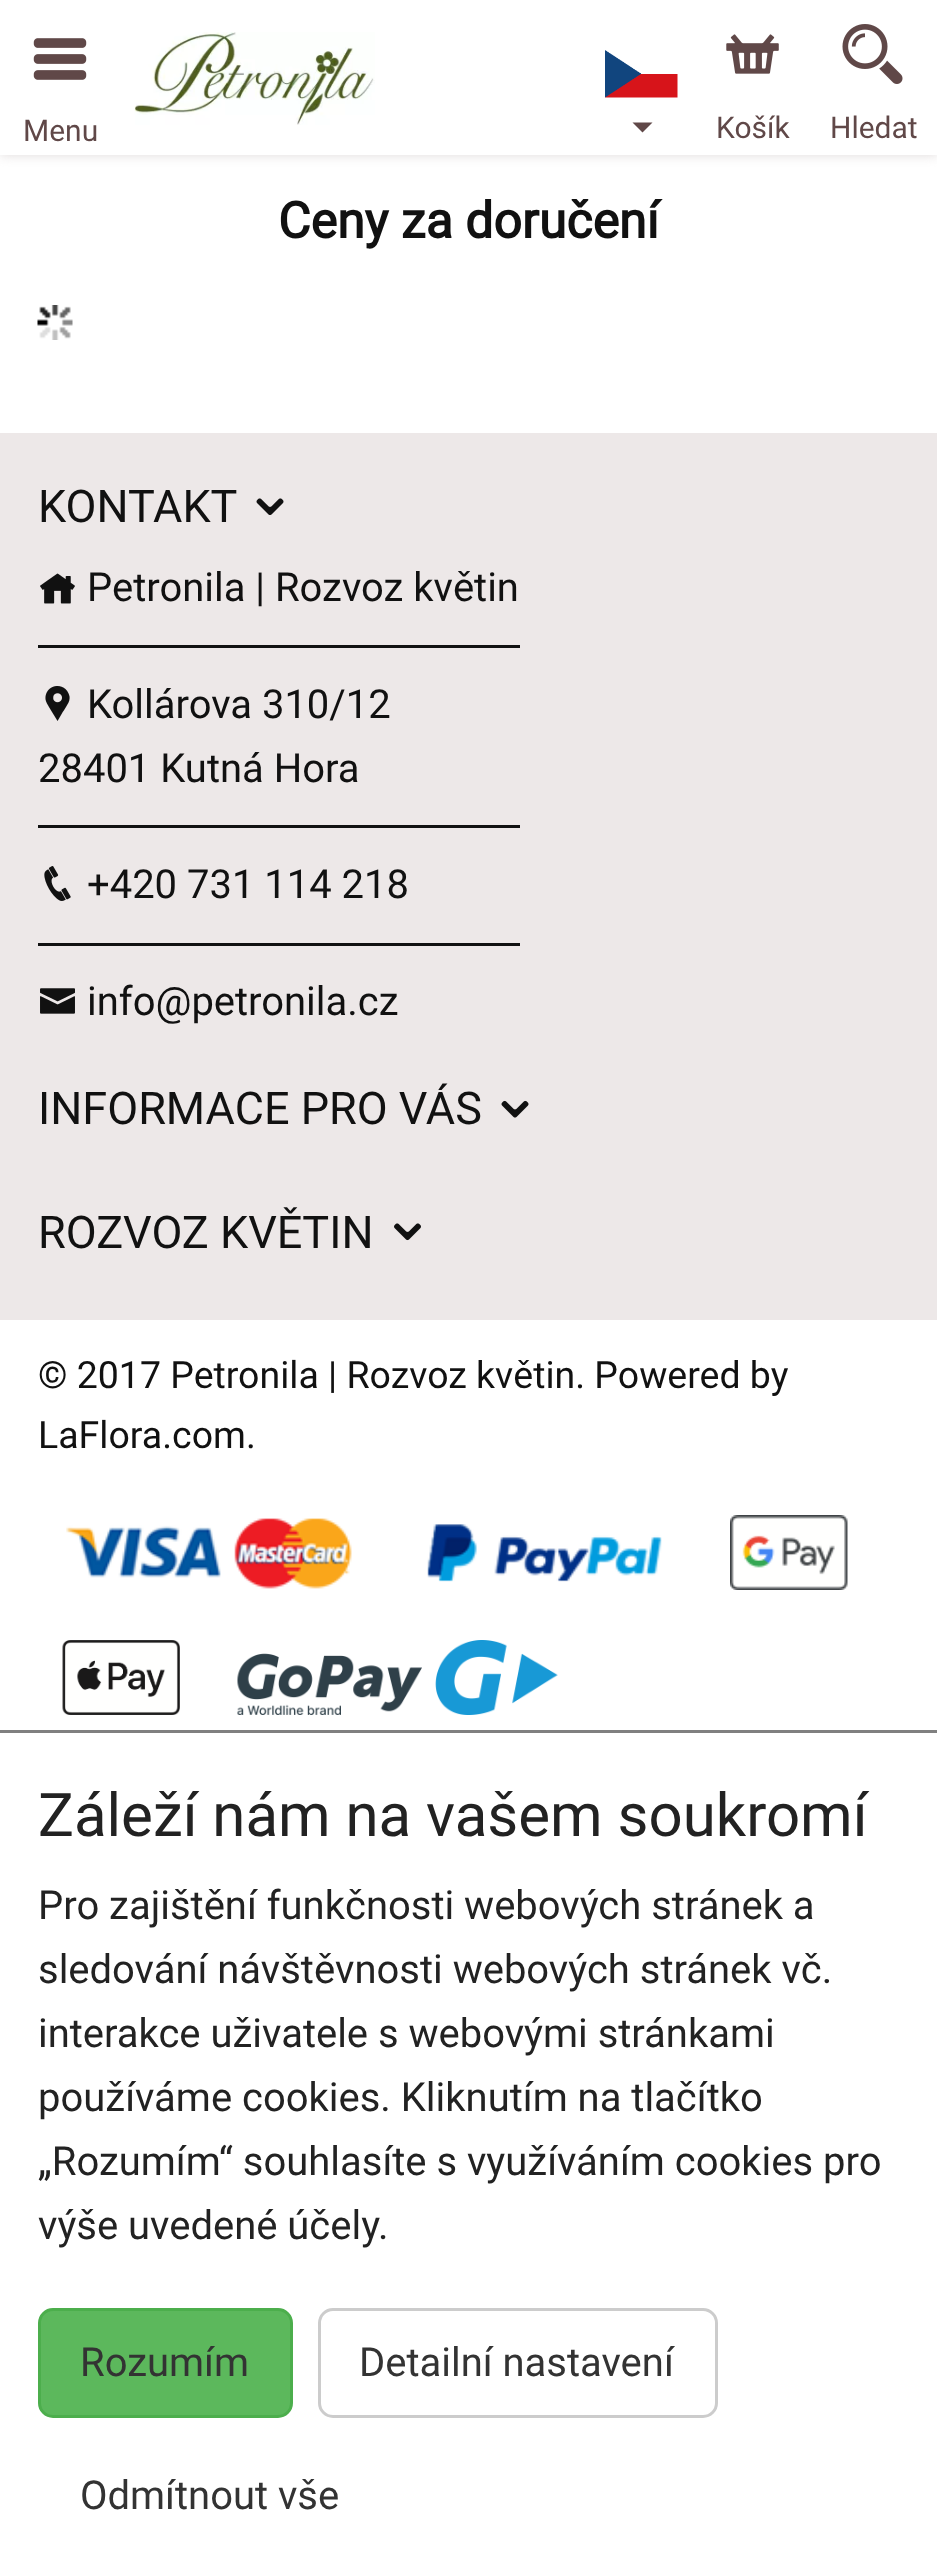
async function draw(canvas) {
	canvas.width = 937;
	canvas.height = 2575;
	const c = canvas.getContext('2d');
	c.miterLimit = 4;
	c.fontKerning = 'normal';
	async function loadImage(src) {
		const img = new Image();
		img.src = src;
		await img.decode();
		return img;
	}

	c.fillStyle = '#fff';
	c.fillRect(0, 0, 937, 2575);
	c.save();
	c.beginPath();
	c.rect(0, 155, 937, 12);
	c.clip();
	c.fillStyle = '#dfdada';
	c.filter = 'blur(6px)';
	c.beginPath();
	c.rect(0, 0, 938, 155);
	c.fill();
	c.filter = 'none';
	c.restore();
	c.drawImage(await loadImage('img1.png'), 33, 38, 54, 42);
	c.font = '30px Roboto';
	c.fillStyle = '#604848';
	c.fillText('Menu', 23, 141);
	c.drawImage(await loadImage('img2.png'), 134, 32, 241, 93);
	c.drawImage(await loadImage('img3.png'), 605, 50, 73, 48);
	c.beginPath();
	c.moveTo(632.5, 122.5);
	c.lineTo(652.5, 122.5);
	c.lineTo(642.5, 132.5);
	c.closePath();
	c.fill();
	c.drawImage(await loadImage('img4.png'), 726, 34, 53, 40);
	c.fillText('Košík', 716, 138);
	c.drawImage(await loadImage('img5.png'), 842, 24, 61, 60);
	c.fillText('Hledat', 830, 138);
	c.font = 'bold 50px Roboto';
	c.fillStyle = '#111';
	c.fillText('Ceny za doručení', 278, 238);
	c.drawImage(await loadImage('img6.png'), 37, 305, 36, 35);
	c.fillStyle = '#ede8e8';
	c.fillRect(0, 433, 937, 887);
	c.font = '45px Roboto';
	c.fillStyle = '#111';
	c.fillText('KONTAKT', 38, 522);
	c.drawImage(await loadImage('img7.png'), 256, 498, 28, 17);
	c.drawImage(await loadImage('img8.png'), 40, 573, 35, 31);
	c.font = '40px Roboto';
	c.fillText('Petronila | Rozvoz květin', 87, 601);
	c.fillRect(38, 645, 482, 3);
	c.drawImage(await loadImage('img9.png'), 45, 686, 25, 35);
	c.fillText('Kollárova 310/12', 87, 718);
	c.fillText('28401 Kutná Hora', 38, 782);
	c.fillRect(38, 825, 482, 3);
	c.drawImage(await loadImage('img10.png'), 44, 866, 27, 35);
	c.fillText('+420 731 114 218', 87, 898);
	c.fillRect(38, 943, 482, 3);
	c.drawImage(await loadImage('img11.png'), 40, 988, 35, 26);
	c.fillText('info@petronila.cz', 87, 1015);
	c.font = '45px Roboto';
	c.fillText('INFORMACE PRO VÁS', 38, 1124);
	c.drawImage(await loadImage('img12.png'), 501, 1100, 28, 18);
	c.fillText('ROZVOZ KVĚTIN', 38, 1248);
	c.drawImage(await loadImage('img13.png'), 394, 1223, 27, 18);
	c.font = '37.5px Roboto';
	c.fillText('© 2017 Petronila | Rozvoz květin. Powered by', 38, 1388);
	c.fillText('LaFlora.com.', 38, 1448);
	c.drawImage(await loadImage('img14.png'), 66, 1518, 286, 71);
	c.drawImage(await loadImage('img15.png'), 427, 1524, 235, 58);
	c.drawImage(await loadImage('img16.png'), 730, 1515, 118, 75);
	c.drawImage(await loadImage('img17.png'), 62, 1640, 118, 75);
	c.drawImage(await loadImage('img18.png'), 237, 1640, 321, 75);
	c.fillStyle = '#808080';
	c.fillRect(0, 1730, 937, 3);
	c.font = '60px Roboto';
	c.fillStyle = '#222';
	c.fillText('Záleží nám na vašem soukromí', 38, 1836);
	c.font = '40px Roboto';
	for (const [text, x, y] of [
		['Pro zajištění funkčnosti webových stránek a', 38, 1919],
		['sledování návštěvnosti webových stránek vč.', 38, 1983],
		['interakce uživatele s webovými stránkami', 38, 2047],
		['používáme cookies. Kliknutím na tlačítko', 38, 2111],
		['„Rozumím“ souhlasíte s využíváním cookies pro', 38, 2175],
		['výše uvedené účely.', 38, 2239],
	]) {
		c.fillText(text, x, y);
	}
	c.fillStyle = '#5cb85c';
	c.beginPath();
	c.roundRect(39.5, 2309.5, 252, 107, 13.5);
	c.fill();
	c.strokeStyle = '#4cae4c';
	c.lineWidth = 3;
	c.stroke();
	c.fillStyle = '#333';
	c.fillText('Rozumím', 80, 2376);
	c.beginPath();
	c.roundRect(319.5, 2309.5, 397, 107, 13.5);
	c.strokeStyle = '#ccc';
	c.stroke();
	c.fillText('Detailní nastavení', 359, 2376);
	c.fillText('Odmítnout vše', 80, 2509);
}

draw(document.querySelector('canvas'));
